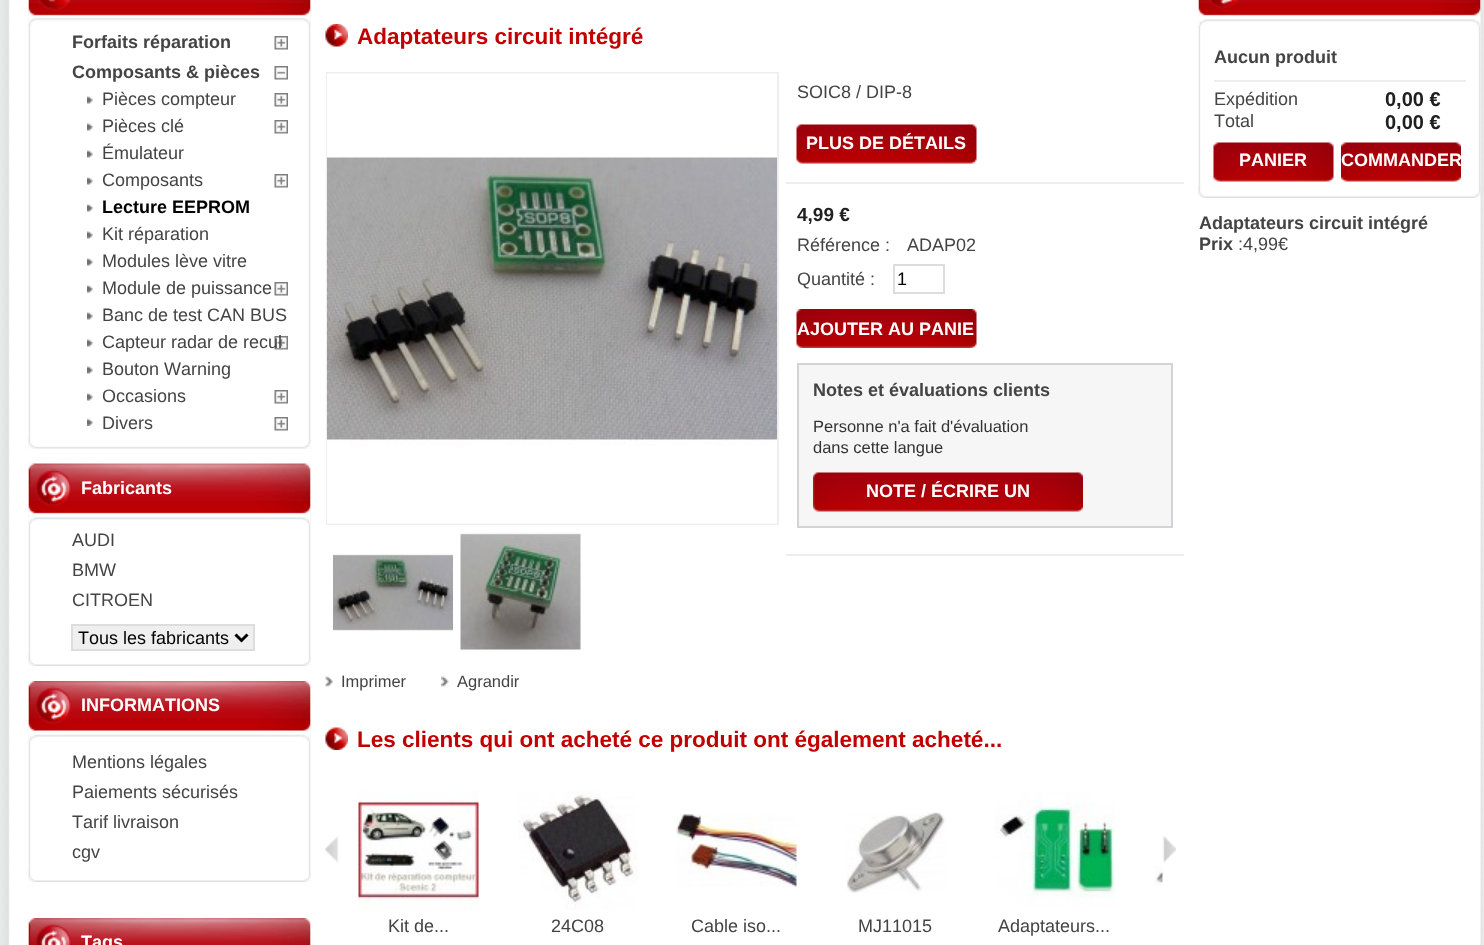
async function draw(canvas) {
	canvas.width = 1484;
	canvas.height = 945;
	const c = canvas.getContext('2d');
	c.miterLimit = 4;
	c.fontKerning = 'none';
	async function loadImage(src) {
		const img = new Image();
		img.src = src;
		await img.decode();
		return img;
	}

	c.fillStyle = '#fff';
	c.fillRect(0, 0, 1484, 945);
	c.drawImage(await loadImage('img1.png'), 0, 0, 1484, 945);
	c.drawImage(await loadImage('img2.png'), 28, 0, 283, 449);
	c.drawImage(await loadImage('img3.png'), 28, 0, 283, 27);
	c.drawImage(await loadImage('img4.png'), 28, 437, 283, 12);
	c.font = 'bold 18px Liberation Sans';
	c.fillStyle = '#444';
	c.fillText('Forfaits réparation', 72, 48);
	c.drawImage(await loadImage('img5.png'), 274, 36, 14, 14);
	c.fillText('Composants & pièces', 72, 78);
	c.drawImage(await loadImage('img6.png'), 274, 66, 14, 14);
	c.drawImage(await loadImage('img7.png'), 87, 96, 6, 8);
	c.font = '18px Liberation Sans';
	c.fillText('Pièces compteur', 102, 105);
	c.drawImage(await loadImage('img5.png'), 274, 93, 14, 14);
	c.drawImage(await loadImage('img7.png'), 87, 123, 6, 8);
	c.fillText('Pièces clé', 102, 132);
	c.drawImage(await loadImage('img5.png'), 274, 120, 14, 14);
	c.drawImage(await loadImage('img7.png'), 87, 150, 6, 8);
	c.fillText('Émulateur', 102, 159);
	c.drawImage(await loadImage('img7.png'), 87, 177, 6, 8);
	c.fillText('Composants', 102, 186);
	c.drawImage(await loadImage('img5.png'), 274, 174, 14, 14);
	c.drawImage(await loadImage('img7.png'), 87, 204, 6, 8);
	c.font = 'bold 18px Liberation Sans';
	c.fillStyle = '#000';
	c.fillText('Lecture EEPROM', 102, 213);
	c.drawImage(await loadImage('img7.png'), 87, 231, 6, 8);
	c.font = '18px Liberation Sans';
	c.fillStyle = '#444';
	c.fillText('Kit réparation', 102, 240);
	c.drawImage(await loadImage('img7.png'), 87, 258, 6, 8);
	c.fillText('Modules lève vitre', 102, 267);
	c.drawImage(await loadImage('img7.png'), 87, 285, 6, 8);
	c.fillText('Module de puissance', 102, 294);
	c.drawImage(await loadImage('img5.png'), 274, 282, 14, 14);
	c.drawImage(await loadImage('img7.png'), 87, 312, 6, 8);
	c.fillText('Banc de test CAN BUS', 102, 321);
	c.drawImage(await loadImage('img7.png'), 87, 339, 6, 8);
	c.drawImage(await loadImage('img5.png'), 274, 336, 14, 14);
	c.fillText('Capteur radar de recul', 102, 348);
	c.drawImage(await loadImage('img7.png'), 87, 366, 6, 8);
	c.fillText('Bouton Warning', 102, 375);
	c.drawImage(await loadImage('img7.png'), 87, 393, 6, 8);
	c.fillText('Occasions', 102, 402);
	c.drawImage(await loadImage('img5.png'), 274, 390, 14, 14);
	c.drawImage(await loadImage('img8.png'), 87, 418, 6, 8);
	c.fillText('Divers', 102, 429);
	c.drawImage(await loadImage('img5.png'), 274, 417, 14, 14);
	c.drawImage(await loadImage('img9.png'), 28, 463, 283, 203);
	c.drawImage(await loadImage('img10.png'), 28, 463, 283, 62);
	c.font = 'bold 18px Liberation Sans';
	c.fillStyle = '#fff';
	c.fillText('Fabricants', 81, 494);
	c.drawImage(await loadImage('img11.png'), 28, 654, 283, 12);
	c.font = '18px Liberation Sans';
	c.fillStyle = '#444';
	for (const [text, x, y] of [
		['AUDI', 72, 546],
		['BMW', 72, 576],
		['CITROEN', 72, 606],
	]) {
		c.fillText(text, x, y);
	}
	c.fillStyle = '#efefef';
	c.beginPath();
	c.rect(72, 625, 182, 25);
	c.fill();
	c.strokeStyle = '#ddd';
	c.lineWidth = 2;
	c.stroke();
	c.beginPath();
	c.moveTo(235.5, 634.5);
	c.lineTo(241.5, 640.5);
	c.lineTo(247.5, 634.5);
	c.strokeStyle = '#000';
	c.lineWidth = 3;
	c.stroke();
	c.fillStyle = '#000';
	c.fillText('Tous les fabricants', 78, 644);
	c.drawImage(await loadImage('img12.png'), 28, 681, 283, 201);
	c.drawImage(await loadImage('img13.png'), 28, 681, 283, 61);
	c.font = 'bold 18px Liberation Sans';
	c.fillStyle = '#fff';
	c.fillText('INFORMATIONS', 81, 711);
	c.drawImage(await loadImage('img11.png'), 28, 870, 283, 12);
	c.font = '18px Liberation Sans';
	c.fillStyle = '#444';
	for (const [text, x, y] of [
		['Mentions légales', 72, 768],
		['Paiements sécurisés', 72, 798],
		['Tarif livraison', 72, 828],
		['cgv', 72, 858],
	]) {
		c.fillText(text, x, y);
	}
	c.drawImage(await loadImage('img14.png'), 28, 918, 283, 27);
	c.drawImage(await loadImage('img15.png'), 28, 918, 283, 27);
	c.font = 'bold 18px Liberation Sans';
	c.fillStyle = '#fff';
	c.fillText('Tags', 81, 948);
	c.drawImage(await loadImage('img16.png'), 325, 24, 23, 23);
	c.font = 'bold 22.5px Liberation Sans';
	c.fillStyle = '#c10001';
	c.fillText('Adaptateurs circuit intégré', 357, 44);
	c.fillStyle = '#eee';
	c.fillRect(786, 182, 398, 2);
	c.font = '18px Liberation Sans';
	c.fillStyle = '#444';
	c.fillText('SOIC8 / DIP-8', 797, 98);
	c.drawImage(await loadImage('img17.png'), 796, 124, 181, 40);
	c.font = 'bold 18px Liberation Sans';
	c.fillStyle = '#fff';
	c.fillText('PLUS DE DÉTAILS', 806, 149);
	c.fillStyle = '#eee';
	c.fillRect(786, 554, 398, 2);
	c.font = 'bold 19px Liberation Sans';
	c.fillStyle = '#202020';
	c.fillText('4,99 €', 797, 221);
	c.font = '18px Liberation Sans';
	c.fillStyle = '#444';
	for (const [text, x, y] of [
		['Référence :', 797, 251],
		['ADAP02', 907, 251],
		['Quantité :', 797, 285],
	]) {
		c.fillText(text, x, y);
	}
	c.strokeStyle = '#ddd';
	c.lineWidth = 2;
	c.strokeRect(894, 265, 50, 28);
	c.fillStyle = '#000';
	c.fillText('1', 897, 285);
	c.drawImage(await loadImage('img18.png'), 796, 309, 181, 39);
	c.font = 'bold 18px Liberation Sans';
	c.fillStyle = '#fff';
	c.fillText('AJOUTER AU PANIE', 797, 335);
	c.fillStyle = '#f6f6f7';
	c.beginPath();
	c.rect(798, 364, 374, 163);
	c.fill();
	c.strokeStyle = '#d0d3d8';
	c.stroke();
	c.fillStyle = '#444';
	c.fillText('Notes et évaluations clients', 813, 396);
	c.font = '16.5px Liberation Sans';
	c.fillStyle = '#333';
	c.fillText('Personne n\'a fait d\'évaluation', 813, 432);
	c.fillText('dans cette langue', 813, 453);
	c.drawImage(await loadImage('img19.png'), 813, 472, 270, 40);
	c.font = 'bold 18px Liberation Sans';
	c.fillStyle = '#fff';
	c.fillText('NOTE / ÉCRIRE UN', 866, 497);
	c.strokeStyle = '#eee';
	c.strokeRect(327, 73, 451, 451);
	c.drawImage(await loadImage('img20.png'), 327, 73, 450, 451);
	c.drawImage(await loadImage('img21.png'), 333, 554, 120, 77);
	c.drawImage(await loadImage('img22.png'), 460, 532, 121, 118);
	c.drawImage(await loadImage('img23.png'), 325, 676, 8, 11);
	c.font = '16.5px Liberation Sans';
	c.fillStyle = '#444';
	c.fillText('Imprimer', 341, 687);
	c.drawImage(await loadImage('img24.png'), 441, 676, 8, 11);
	c.fillText('Agrandir', 457, 687);
	c.drawImage(await loadImage('img25.png'), 325, 727, 23, 23);
	c.font = 'bold 22.5px Liberation Sans';
	c.fillStyle = '#c10001';
	c.fillText('Les clients qui ont acheté ce produit ont également acheté...', 357, 747);
	c.drawImage(await loadImage('img26.png'), 325, 836, 14, 27);
	c.drawImage(await loadImage('img27.png'), 1162, 835, 14, 28);
	c.drawImage(await loadImage('img28.png'), 1154, 866, 9, 20);
	c.drawImage(await loadImage('img29.png'), 358, 791, 121, 120);
	c.font = '18px Liberation Sans';
	c.fillStyle = '#444';
	c.fillText('Kit de...', 388, 932);
	c.drawImage(await loadImage('img30.png'), 518, 791, 120, 119);
	c.fillText('24C08', 551, 932);
	c.drawImage(await loadImage('img31.png'), 676, 814, 121, 73);
	c.fillText('Cable iso...', 691, 932);
	c.drawImage(await loadImage('img32.png'), 846, 812, 100, 81);
	c.fillText('MJ11015', 858, 932);
	c.drawImage(await loadImage('img33.png'), 995, 791, 120, 116);
	c.fillText('Adaptateurs...', 998, 932);
	c.drawImage(await loadImage('img34.png'), 1198, 0, 283, 198);
	c.drawImage(await loadImage('img35.png'), 1198, 0, 283, 27);
	c.drawImage(await loadImage('img36.png'), 1198, 186, 283, 12);
	c.font = 'bold 18px Liberation Sans';
	c.fillText('Aucun produit', 1214, 63);
	c.fillStyle = '#eee';
	c.fillRect(1214, 80, 252, 2);
	c.font = '18px Liberation Sans';
	c.fillStyle = '#444';
	c.fillText('Expédition', 1214, 105);
	c.font = 'bold 20px Liberation Sans';
	c.fillStyle = '#202020';
	c.fillText('0,00 €', 1385, 106);
	c.font = '18px Liberation Sans';
	c.fillStyle = '#444';
	c.fillText('Total', 1214, 127);
	c.font = 'bold 20px Liberation Sans';
	c.fillStyle = '#202020';
	c.fillText('0,00 €', 1385, 129);
	c.drawImage(await loadImage('img37.png'), 1213, 142, 121, 40);
	c.font = 'bold 18px Liberation Sans';
	c.fillStyle = '#fff';
	c.fillText('PANIER', 1239, 166);
	c.drawImage(await loadImage('img38.png'), 1341, 142, 120, 40);
	c.fillText('COMMANDER', 1341, 166);
	c.fillStyle = '#444';
	c.fillText('Adaptateurs circuit intégré', 1199, 229);
	c.fillText('Prix', 1199, 250);
	c.font = '18px Liberation Sans';
	c.fillText(':4,99€', 1238, 250);
}

draw(document.querySelector('canvas'));
